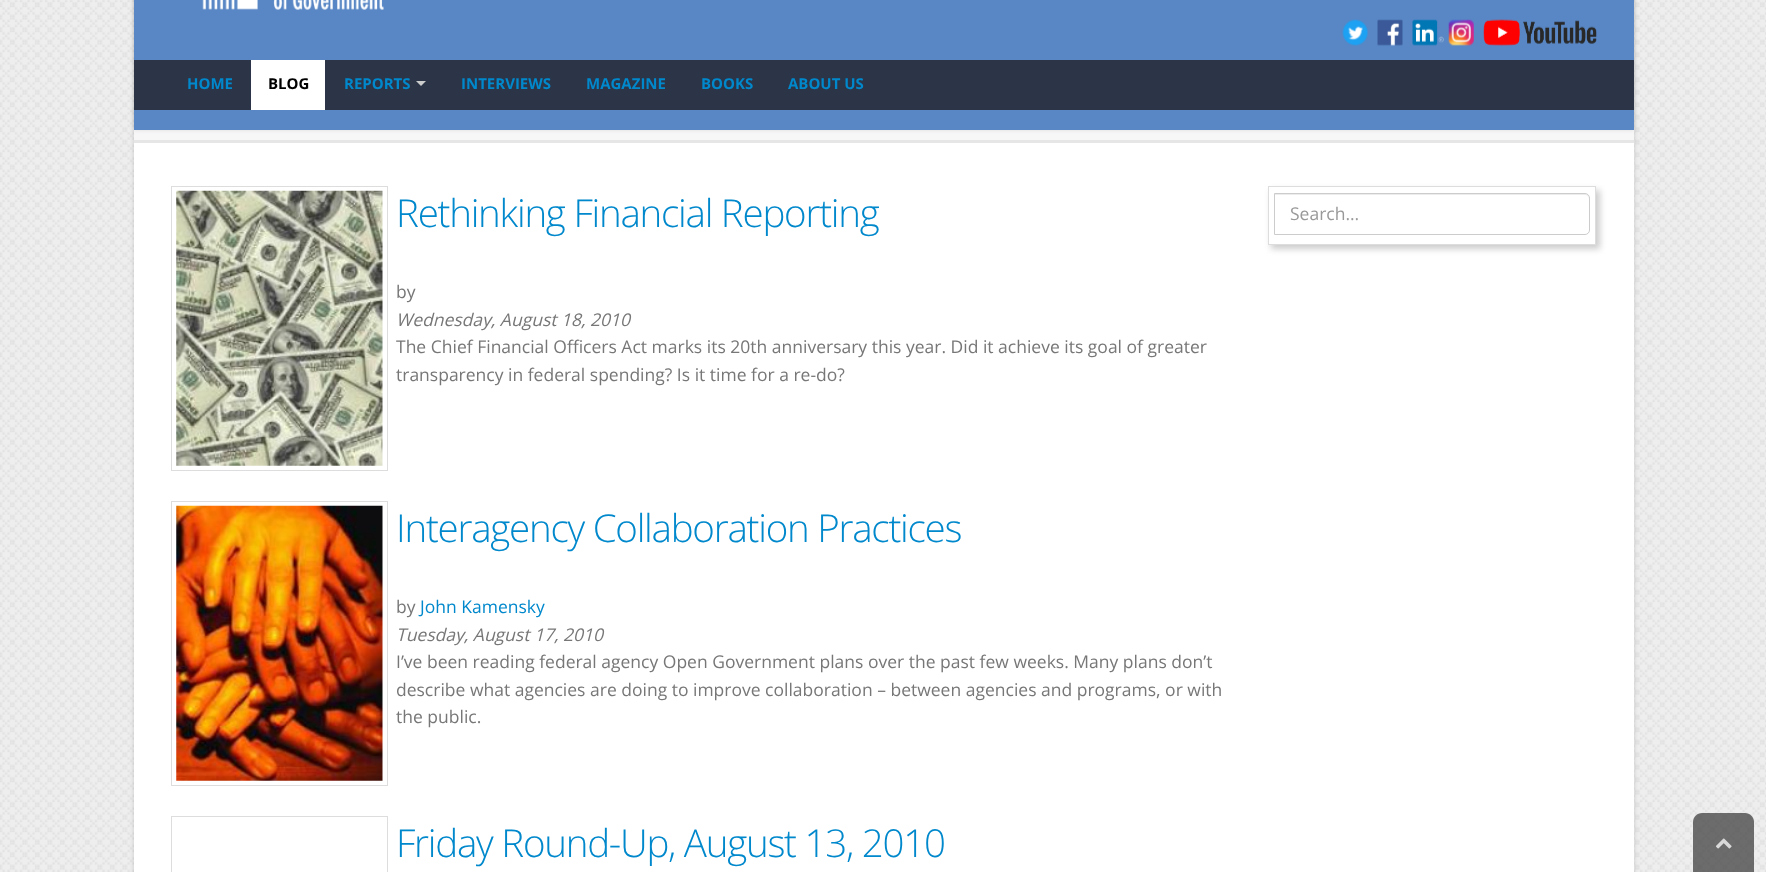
async function draw(canvas) {
	canvas.width = 1766;
	canvas.height = 872;
	const c = canvas.getContext('2d');
	c.miterLimit = 4;
	c.fontKerning = 'normal';
	async function loadImage(src) {
		const img = new Image();
		img.src = src;
		await img.decode();
		return img;
	}

	c.fillStyle = '#fff';
	c.fillRect(0, 0, 1766, 872);
	c.drawImage(await loadImage('img1.png'), 0, 0, 1766, 872);
	c.fillStyle = '#00000026';
	c.filter = 'blur(2.5px)';
	c.beginPath();
	c.roundRect(134, -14, 1500, 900, 6);
	c.fill();
	c.filter = 'none';
	c.fillStyle = '#fff';
	c.fillRect(134, 143, 1500, 729);
	c.fillStyle = '#f7f7f7';
	c.fillRect(134, 130, 1500, 10);
	c.fillStyle = '#0000001a';
	c.filter = 'blur(2px)';
	c.beginPath();
	c.rect(134, -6, 1500, 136);
	c.fill();
	c.filter = 'none';
	c.fillStyle = '#5987c5';
	c.fillRect(134, 0, 1500, 130);
	c.drawImage(await loadImage('img2.png'), 202, 0, 182, 10);
	c.drawImage(await loadImage('img3.png'), 1342, 19, 26, 27);
	c.drawImage(await loadImage('img4.png'), 1377, 19, 26, 27);
	c.drawImage(await loadImage('img5.png'), 1412, 19, 32, 27);
	c.drawImage(await loadImage('img6.png'), 1448, 19, 26, 27);
	c.drawImage(await loadImage('img7.png'), 1483, 19, 114, 27);
	c.fillStyle = '#2c3448';
	c.fillRect(134, 60, 1500, 50);
	c.font = 'bold 15px Open Sans';
	c.fillStyle = '#08c';
	c.fillText('HOME', 187, 89);
	c.fillStyle = '#fff';
	c.fillRect(251, 60, 74, 50);
	c.fillStyle = '#000';
	c.fillText('BLOG', 268, 89);
	c.fillStyle = '#08c';
	c.fillText('REPORTS', 344, 89);
	c.fillStyle = '#ccc';
	c.beginPath();
	c.moveTo(416, 81);
	c.lineTo(426, 81);
	c.lineTo(421, 86);
	c.closePath();
	c.fill();
	c.fillStyle = '#08c';
	for (const [text, x, y] of [
		['INTERVIEWS', 461, 89],
		['MAGAZINE', 586, 89],
		['BOOKS', 701, 89],
		['ABOUT US', 788, 89],
	]) {
		c.fillText(text, x, y);
	}
	c.fillStyle = '#e6e6e6';
	c.fillRect(134, 140, 1500, 3);
	c.strokeStyle = '#ddd';
	c.strokeRect(171.5, 186.5, 216, 284);
	c.drawImage(await loadImage('img8.png'), 176, 190, 207, 276);
	c.letterSpacing = '-1.25px';
	c.font = '300 38.5px Open Sans';
	c.fillStyle = '#08c';
	c.fillText('Rethinking Financial Reporting', 396, 227);
	c.letterSpacing = '0px';
	c.font = '17.5px Open Sans';
	c.fillStyle = '#777';
	c.fillText('by', 396, 298);
	c.font = 'italic 17.5px Open Sans';
	c.fillText('Wednesday, August 18, 2010', 396, 326);
	c.font = '17.5px Open Sans';
	c.fillText('The Chief Financial Officers Act marks its 20th anniversary this year. Did it achieve its goal of greater', 396, 353);
	c.fillText('transparency in federal spending? Is it time for a re-do?', 396, 381);
	c.strokeRect(171.5, 501.5, 216, 284);
	c.drawImage(await loadImage('img9.png'), 176, 505, 207, 276);
	c.letterSpacing = '-1.25px';
	c.font = '300 38.5px Open Sans';
	c.fillStyle = '#08c';
	c.fillText('Interagency Collaboration Practices', 396, 542);
	c.letterSpacing = '0px';
	c.font = '17.5px Open Sans';
	c.fillStyle = '#777';
	c.fillText('by', 396, 613);
	c.fillStyle = '#08c';
	c.fillText('John Kamensky', 420, 613);
	c.font = 'italic 17.5px Open Sans';
	c.fillStyle = '#777';
	c.fillText('Tuesday, August 17, 2010', 396, 641);
	c.font = '17.5px Open Sans';
	for (const [text, x, y] of [
		['I’ve been reading federal agency Open Government plans over the past few weeks. Many plans don’t', 396, 668],
		['describe what agencies are doing to improve collaboration – between agencies and programs, or with', 396, 696],
		['the public.', 396, 723],
	]) {
		c.fillText(text, x, y);
	}
	c.strokeRect(171.5, 816.5, 216, 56);
	c.letterSpacing = '-1.25px';
	c.font = '300 38.5px Open Sans';
	c.fillStyle = '#08c';
	c.fillText('Friday Round-Up, August 13, 2010', 396, 857);
	c.save();
	c.beginPath();
	c.moveTo(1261, 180);
	c.lineTo(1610, 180);
	c.lineTo(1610, 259);
	c.lineTo(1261, 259);
	c.closePath();
	c.moveTo(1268, 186);
	c.lineTo(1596, 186);
	c.lineTo(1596, 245);
	c.lineTo(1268, 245);
	c.closePath();
	c.clip('evenodd');
	c.fillStyle = '#ccc';
	c.filter = 'blur(3px)';
	c.beginPath();
	c.rect(1271, 190, 329, 59);
	c.fill();
	c.filter = 'none';
	c.restore();
	c.strokeRect(1268.5, 186.5, 327, 58);
	c.fillStyle = '#ececec';
	c.beginPath();
	c.moveTo(1275, 195);
	c.lineTo(1585, 195);
	c.bezierCurveTo(1587, 195, 1589, 197, 1589, 199);
	c.lineTo(1589, 198);
	c.bezierCurveTo(1589, 196, 1587, 194, 1585, 194);
	c.lineTo(1275, 194);
	c.closePath();
	c.fill();
	c.beginPath();
	c.roundRect(1274.5, 193.5, 315, 41, [0, 4.5, 4.5, 0]);
	c.strokeStyle = '#ccc';
	c.stroke();
	c.letterSpacing = '0px';
	c.font = '17.5px Open Sans';
	c.fillStyle = '#999';
	c.fillText('Search...', 1290, 220);
	c.fillStyle = '#404040bf';
	c.beginPath();
	c.moveTo(1702, 813);
	c.lineTo(1745, 813);
	c.bezierCurveTo(1750, 813, 1754, 817, 1754, 822);
	c.lineTo(1754, 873);
	c.lineTo(1693, 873);
	c.lineTo(1693, 822);
	c.bezierCurveTo(1693, 817, 1697, 813, 1702, 813);
	c.closePath();
	c.fill();
	c.drawImage(await loadImage('img10.png'), 1715, 838, 17, 11);
}

draw(document.querySelector('canvas'));
